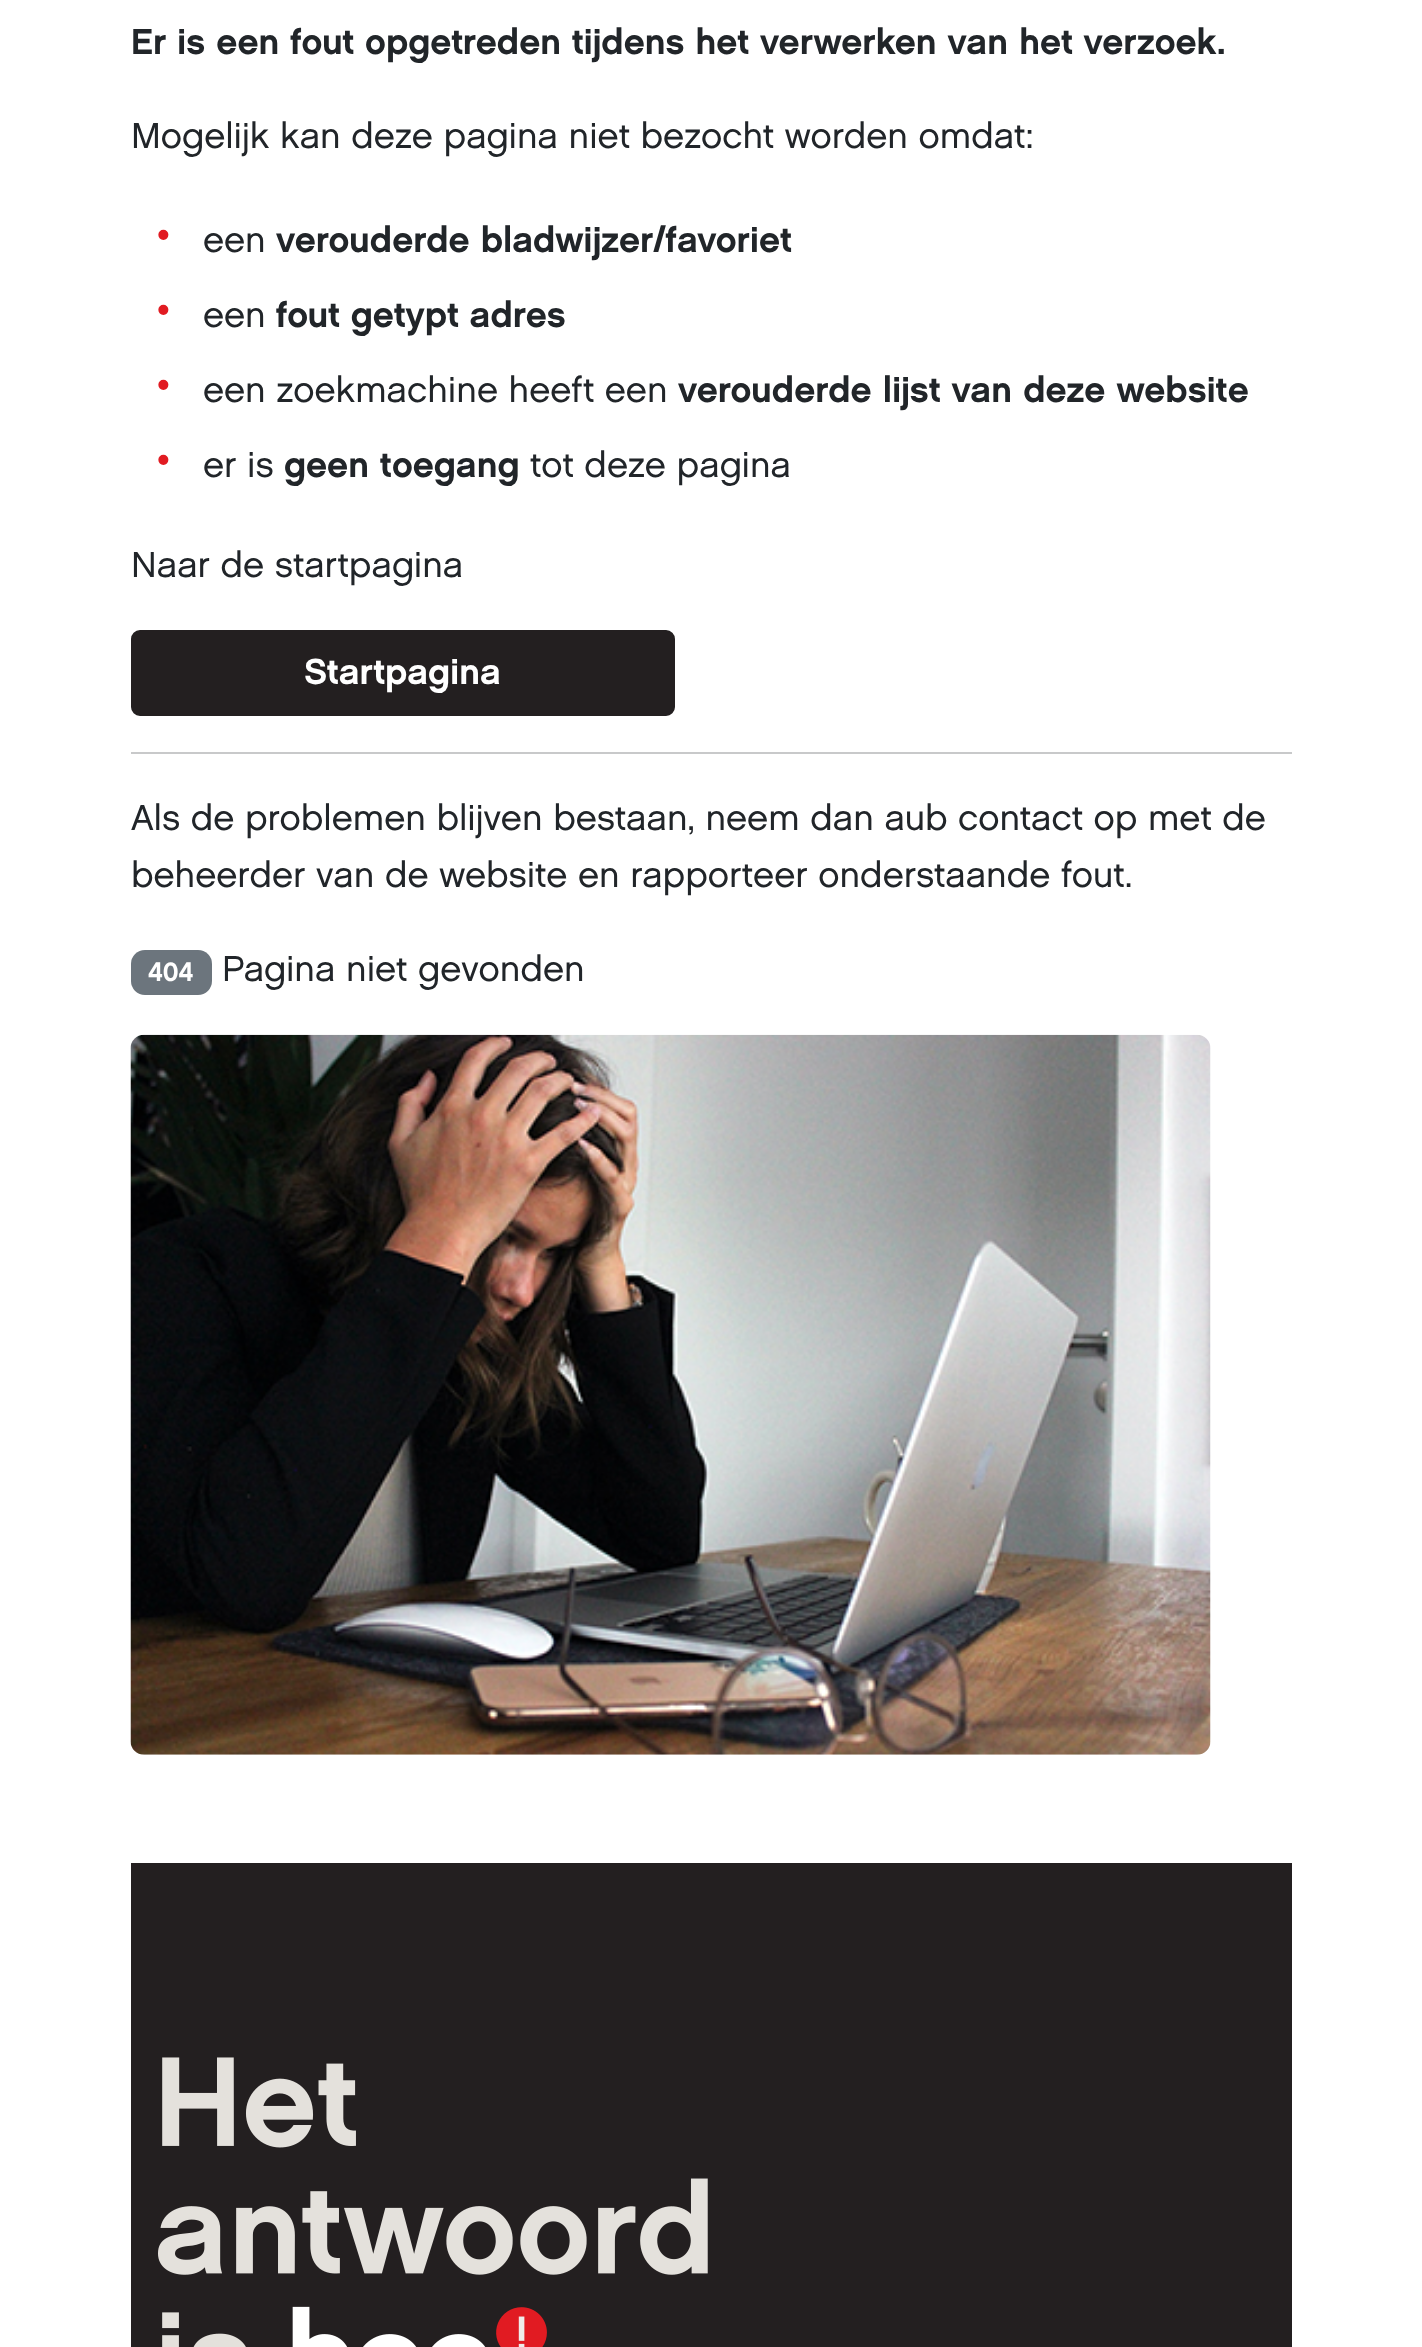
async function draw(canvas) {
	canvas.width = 1422;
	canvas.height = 2347;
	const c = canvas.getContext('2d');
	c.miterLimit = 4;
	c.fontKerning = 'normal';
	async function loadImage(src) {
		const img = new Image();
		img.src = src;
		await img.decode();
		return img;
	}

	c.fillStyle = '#fff';
	c.fillRect(0, 0, 1422, 2347);
	c.font = '36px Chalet';
	c.fillStyle = '#212529';
	c.fillText('Er is een fout opgetreden tijdens het verwerken van het verzoek.', 131, 54);
	c.font = '36px "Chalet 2"';
	c.fillText('Mogelijk kan deze pagina niet bezocht worden omdat:', 131, 148);
	c.font = '47px Chalet';
	c.fillStyle = '#e11b22';
	c.fillText('•', 156, 252);
	c.font = '36px "Chalet 2"';
	c.fillStyle = '#212529';
	c.fillText('een', 203, 252);
	c.font = '36px Chalet';
	c.fillText('verouderde bladwijzer/favoriet', 276, 252);
	c.font = '47px Chalet';
	c.fillStyle = '#e11b22';
	c.fillText('•', 156, 327);
	c.font = '36px "Chalet 2"';
	c.fillStyle = '#212529';
	c.fillText('een', 203, 327);
	c.font = '36px Chalet';
	c.fillText('fout getypt adres', 276, 327);
	c.font = '47px Chalet';
	c.fillStyle = '#e11b22';
	c.fillText('•', 156, 402);
	c.font = '36px "Chalet 2"';
	c.fillStyle = '#212529';
	c.fillText('een zoekmachine heeft een', 203, 402);
	c.font = '36px Chalet';
	c.fillText('verouderde lijst van deze website', 678, 402);
	c.font = '47px Chalet';
	c.fillStyle = '#e11b22';
	c.fillText('•', 156, 477);
	c.font = '36px "Chalet 2"';
	c.fillStyle = '#212529';
	c.fillText('er is', 203, 477);
	c.font = '36px Chalet';
	c.fillText('geen toegang', 284, 477);
	c.font = '36px "Chalet 2"';
	c.fillText('tot deze pagina', 530, 477);
	c.fillText('Naar de startpagina', 131, 577);
	c.fillStyle = '#231f20';
	c.beginPath();
	c.roundRect(132, 631, 542, 84, 8);
	c.fill();
	c.strokeStyle = '#231f20';
	c.lineWidth = 2;
	c.stroke();
	c.font = '36px Chalet';
	c.fillStyle = '#fff';
	c.fillText('Startpagina', 304, 684);
	c.fillStyle = '#c8c9ca';
	c.fillRect(131, 752, 1161, 2);
	c.font = '36px "Chalet 2"';
	c.fillStyle = '#212529';
	c.fillText('Als de problemen blijven bestaan, neem dan aub contact op met de', 131, 830);
	c.fillText('beheerder van de website en rapporteer onderstaande fout.', 131, 887);
	c.fillStyle = '#6c757d';
	c.beginPath();
	c.roundRect(131, 950, 81, 45, 14);
	c.fill();
	c.font = '27px Chalet';
	c.fillStyle = '#fff';
	c.fillText('404', 148, 981);
	c.font = '36px "Chalet 2"';
	c.fillStyle = '#212529';
	c.fillText('Pagina niet gevonden', 222, 981);
	c.drawImage(await loadImage('img1.png'), 130, 1034, 1081, 721);
	c.fillStyle = '#231f20';
	c.fillRect(131, 1863, 1161, 484);
	c.drawImage(await loadImage('img2.png'), 158, 2057, 550, 290);
}

draw(document.querySelector('canvas'));
